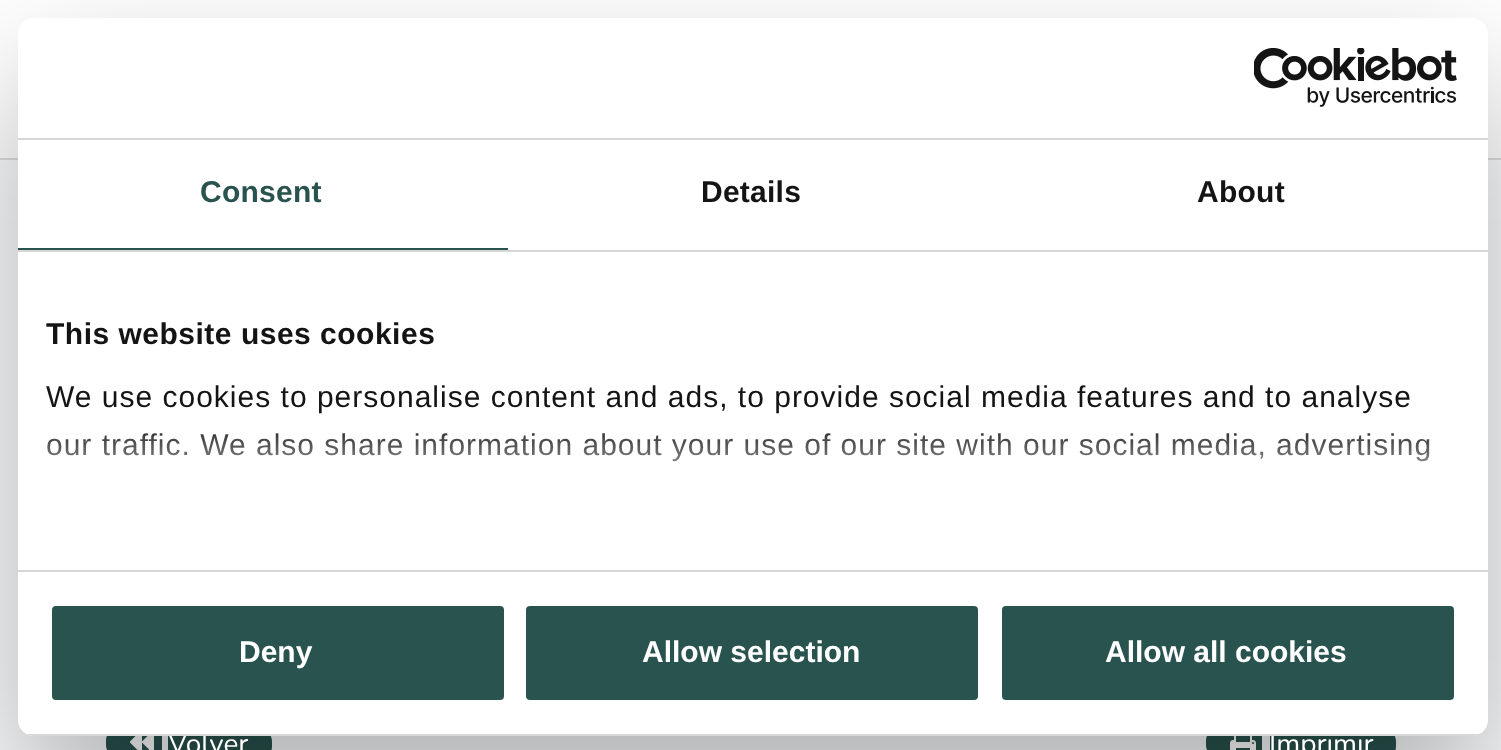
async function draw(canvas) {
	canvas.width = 1501;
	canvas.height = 750;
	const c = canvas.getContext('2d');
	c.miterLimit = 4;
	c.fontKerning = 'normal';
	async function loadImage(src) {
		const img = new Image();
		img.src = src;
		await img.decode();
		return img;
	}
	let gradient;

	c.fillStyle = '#fafcfd';
	c.fillRect(0, 0, 1501, 750);
	c.fillStyle = '#fff';
	c.fillRect(0, 0, 1501, 158);
	c.fillStyle = '#ddd';
	c.fillRect(0, 158, 1501, 2);
	c.fillStyle = '#29534e';
	c.beginPath();
	c.moveTo(129, 720);
	c.lineTo(162, 720);
	c.lineTo(162, 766);
	c.lineTo(129, 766);
	c.bezierCurveTo(116.5, 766, 106, 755.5, 106, 743);
	c.bezierCurveTo(106, 730.5, 116.5, 720, 129, 720);
	c.closePath();
	c.fill();
	c.beginPath();
	c.moveTo(129, 720);
	c.lineTo(162, 720);
	c.lineTo(162, 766);
	c.lineTo(129, 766);
	c.bezierCurveTo(116, 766, 106, 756, 106, 743);
	c.bezierCurveTo(106, 730, 116, 720, 129, 720);
	c.closePath();
	c.moveTo(129, 722);
	c.lineTo(162, 722);
	c.lineTo(162, 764);
	c.lineTo(129, 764);
	c.bezierCurveTo(117, 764, 108, 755, 108, 743);
	c.bezierCurveTo(108, 731, 117, 722, 129, 722);
	c.closePath();
	c.fill('evenodd');
	c.beginPath();
	c.moveTo(168, 716);
	c.lineTo(244, 716);
	c.bezierCurveTo(259.5, 716, 272, 728.5, 272, 744);
	c.bezierCurveTo(272, 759.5, 259.5, 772, 244, 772);
	c.lineTo(168, 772);
	c.closePath();
	c.fill();
	c.beginPath();
	c.moveTo(168, 716);
	c.lineTo(244, 716);
	c.bezierCurveTo(259, 716, 272, 729, 272, 744);
	c.bezierCurveTo(272, 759, 259, 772, 244, 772);
	c.lineTo(168, 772);
	c.closePath();
	c.moveTo(168, 718);
	c.lineTo(244, 718);
	c.bezierCurveTo(258, 718, 270, 730, 270, 744);
	c.bezierCurveTo(270, 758, 258, 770, 244, 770);
	c.lineTo(168, 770);
	c.closePath();
	c.fill('evenodd');
	c.drawImage(await loadImage('img2.png'), 130, 736, 24, 14);
	c.beginPath();
	c.moveTo(1229, 720);
	c.lineTo(1262, 720);
	c.lineTo(1262, 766);
	c.lineTo(1229, 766);
	c.bezierCurveTo(1216.5, 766, 1206, 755.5, 1206, 743);
	c.bezierCurveTo(1206, 730.5, 1216.5, 720, 1229, 720);
	c.closePath();
	c.fill();
	c.beginPath();
	c.moveTo(1229, 720);
	c.lineTo(1262, 720);
	c.lineTo(1262, 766);
	c.lineTo(1229, 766);
	c.bezierCurveTo(1216, 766, 1206, 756, 1206, 743);
	c.bezierCurveTo(1206, 730, 1216, 720, 1229, 720);
	c.closePath();
	c.moveTo(1229, 722);
	c.lineTo(1262, 722);
	c.lineTo(1262, 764);
	c.lineTo(1229, 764);
	c.bezierCurveTo(1217, 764, 1208, 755, 1208, 743);
	c.bezierCurveTo(1208, 731, 1217, 722, 1229, 722);
	c.closePath();
	c.fill('evenodd');
	c.beginPath();
	c.moveTo(1270, 716);
	c.lineTo(1368, 716);
	c.bezierCurveTo(1383.5, 716, 1396, 728.5, 1396, 744);
	c.bezierCurveTo(1396, 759.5, 1383.5, 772, 1368, 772);
	c.lineTo(1270, 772);
	c.closePath();
	c.fill();
	c.beginPath();
	c.moveTo(1270, 716);
	c.lineTo(1368, 716);
	c.bezierCurveTo(1383, 716, 1396, 729, 1396, 744);
	c.bezierCurveTo(1396, 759, 1383, 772, 1368, 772);
	c.lineTo(1270, 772);
	c.closePath();
	c.moveTo(1270, 718);
	c.lineTo(1368, 718);
	c.bezierCurveTo(1382, 718, 1394, 730, 1394, 744);
	c.bezierCurveTo(1394, 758, 1382, 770, 1368, 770);
	c.lineTo(1270, 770);
	c.closePath();
	c.fill('evenodd');
	c.drawImage(await loadImage('img3.png'), 1230, 736, 26, 14);
	c.fillStyle = '#0000004d';
	c.filter = 'blur(68px)';
	c.beginPath();
	c.roundRect(18, 82, 1470, 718, 16);
	c.fill();
	c.filter = 'none';
	c.fillStyle = '#fff';
	c.beginPath();
	c.roundRect(18, 18, 1470, 718, 16);
	c.fill();
	c.fillStyle = '#d6d6d6';
	c.fillRect(18, 138, 1470, 2);
	c.drawImage(await loadImage('img1.png'), 1254, 48, 203, 59);
	c.fillRect(18, 250, 1470, 2);
	c.fillStyle = '#29534e';
	c.fillRect(18, 248, 490, 2);
	c.letterSpacing = '0.25px';
	c.font = 'bold 30px Liberation Sans';
	c.fillText('Consent', 200, 202);
	c.fillStyle = '#141414';
	c.fillText('Details', 701, 202);
	c.fillText('About', 1197, 202);
	c.fillStyle = '#d6d6d6';
	c.fillRect(18, 570, 1470, 2);
	c.letterSpacing = '0.5px';
	c.fillStyle = '#141414';
	c.fillText('This website uses cookies', 46, 344);
	c.letterSpacing = '1px';
	c.font = '30px Liberation Sans';
	c.fillText('We use cookies to personalise content and ads, to provide social media features and to analyse', 46, 407);
	c.fillText('our traffic. We also share information about your use of our site with our social media, advertising', 46, 455);
	gradient = c.createLinearGradient(739, 569, 739, 419);
	gradient.addColorStop(0, '#fff');
	gradient.addColorStop(0.5, '#ffffffcc');
	gradient.addColorStop(1, '#ffffff00');
	c.fillStyle = gradient;
	c.fillRect(47, 433, 1383, 29);
	c.letterSpacing = '0px';
	c.font = '28px Nunito';
	c.fillStyle = '#fff';
	c.fillText('Volver', 168, 753);
	c.fillText('Imprimir', 1269, 753);
	c.save();
	c.beginPath();
	c.roundRect(18, 18, 1470, 718, 16);
	c.clip();
	c.fillStyle = '#d6d6d6';
	c.fillRect(18, 734, 1470, 2);
	c.restore();
	c.fillStyle = '#29534e';
	c.beginPath();
	c.roundRect(50, 604, 456, 98, 6);
	c.fill();
	c.strokeStyle = '#fff';
	c.lineWidth = 4;
	c.stroke();
	c.font = 'bold 30px Liberation Sans';
	c.fillStyle = '#fff';
	c.fillText('Deny', 239, 662);
	c.fillStyle = '#29534e';
	c.beginPath();
	c.roundRect(524, 604, 456, 98, 6);
	c.fill();
	c.stroke();
	c.fillStyle = '#fff';
	c.fillText('Allow selection', 642, 662);
	c.fillStyle = '#29534e';
	c.beginPath();
	c.roundRect(1000, 604, 456, 98, 6);
	c.fill();
	c.stroke();
	c.fillStyle = '#fff';
	c.fillText('Allow all cookies', 1105, 662);
}

draw(document.querySelector('canvas'));
